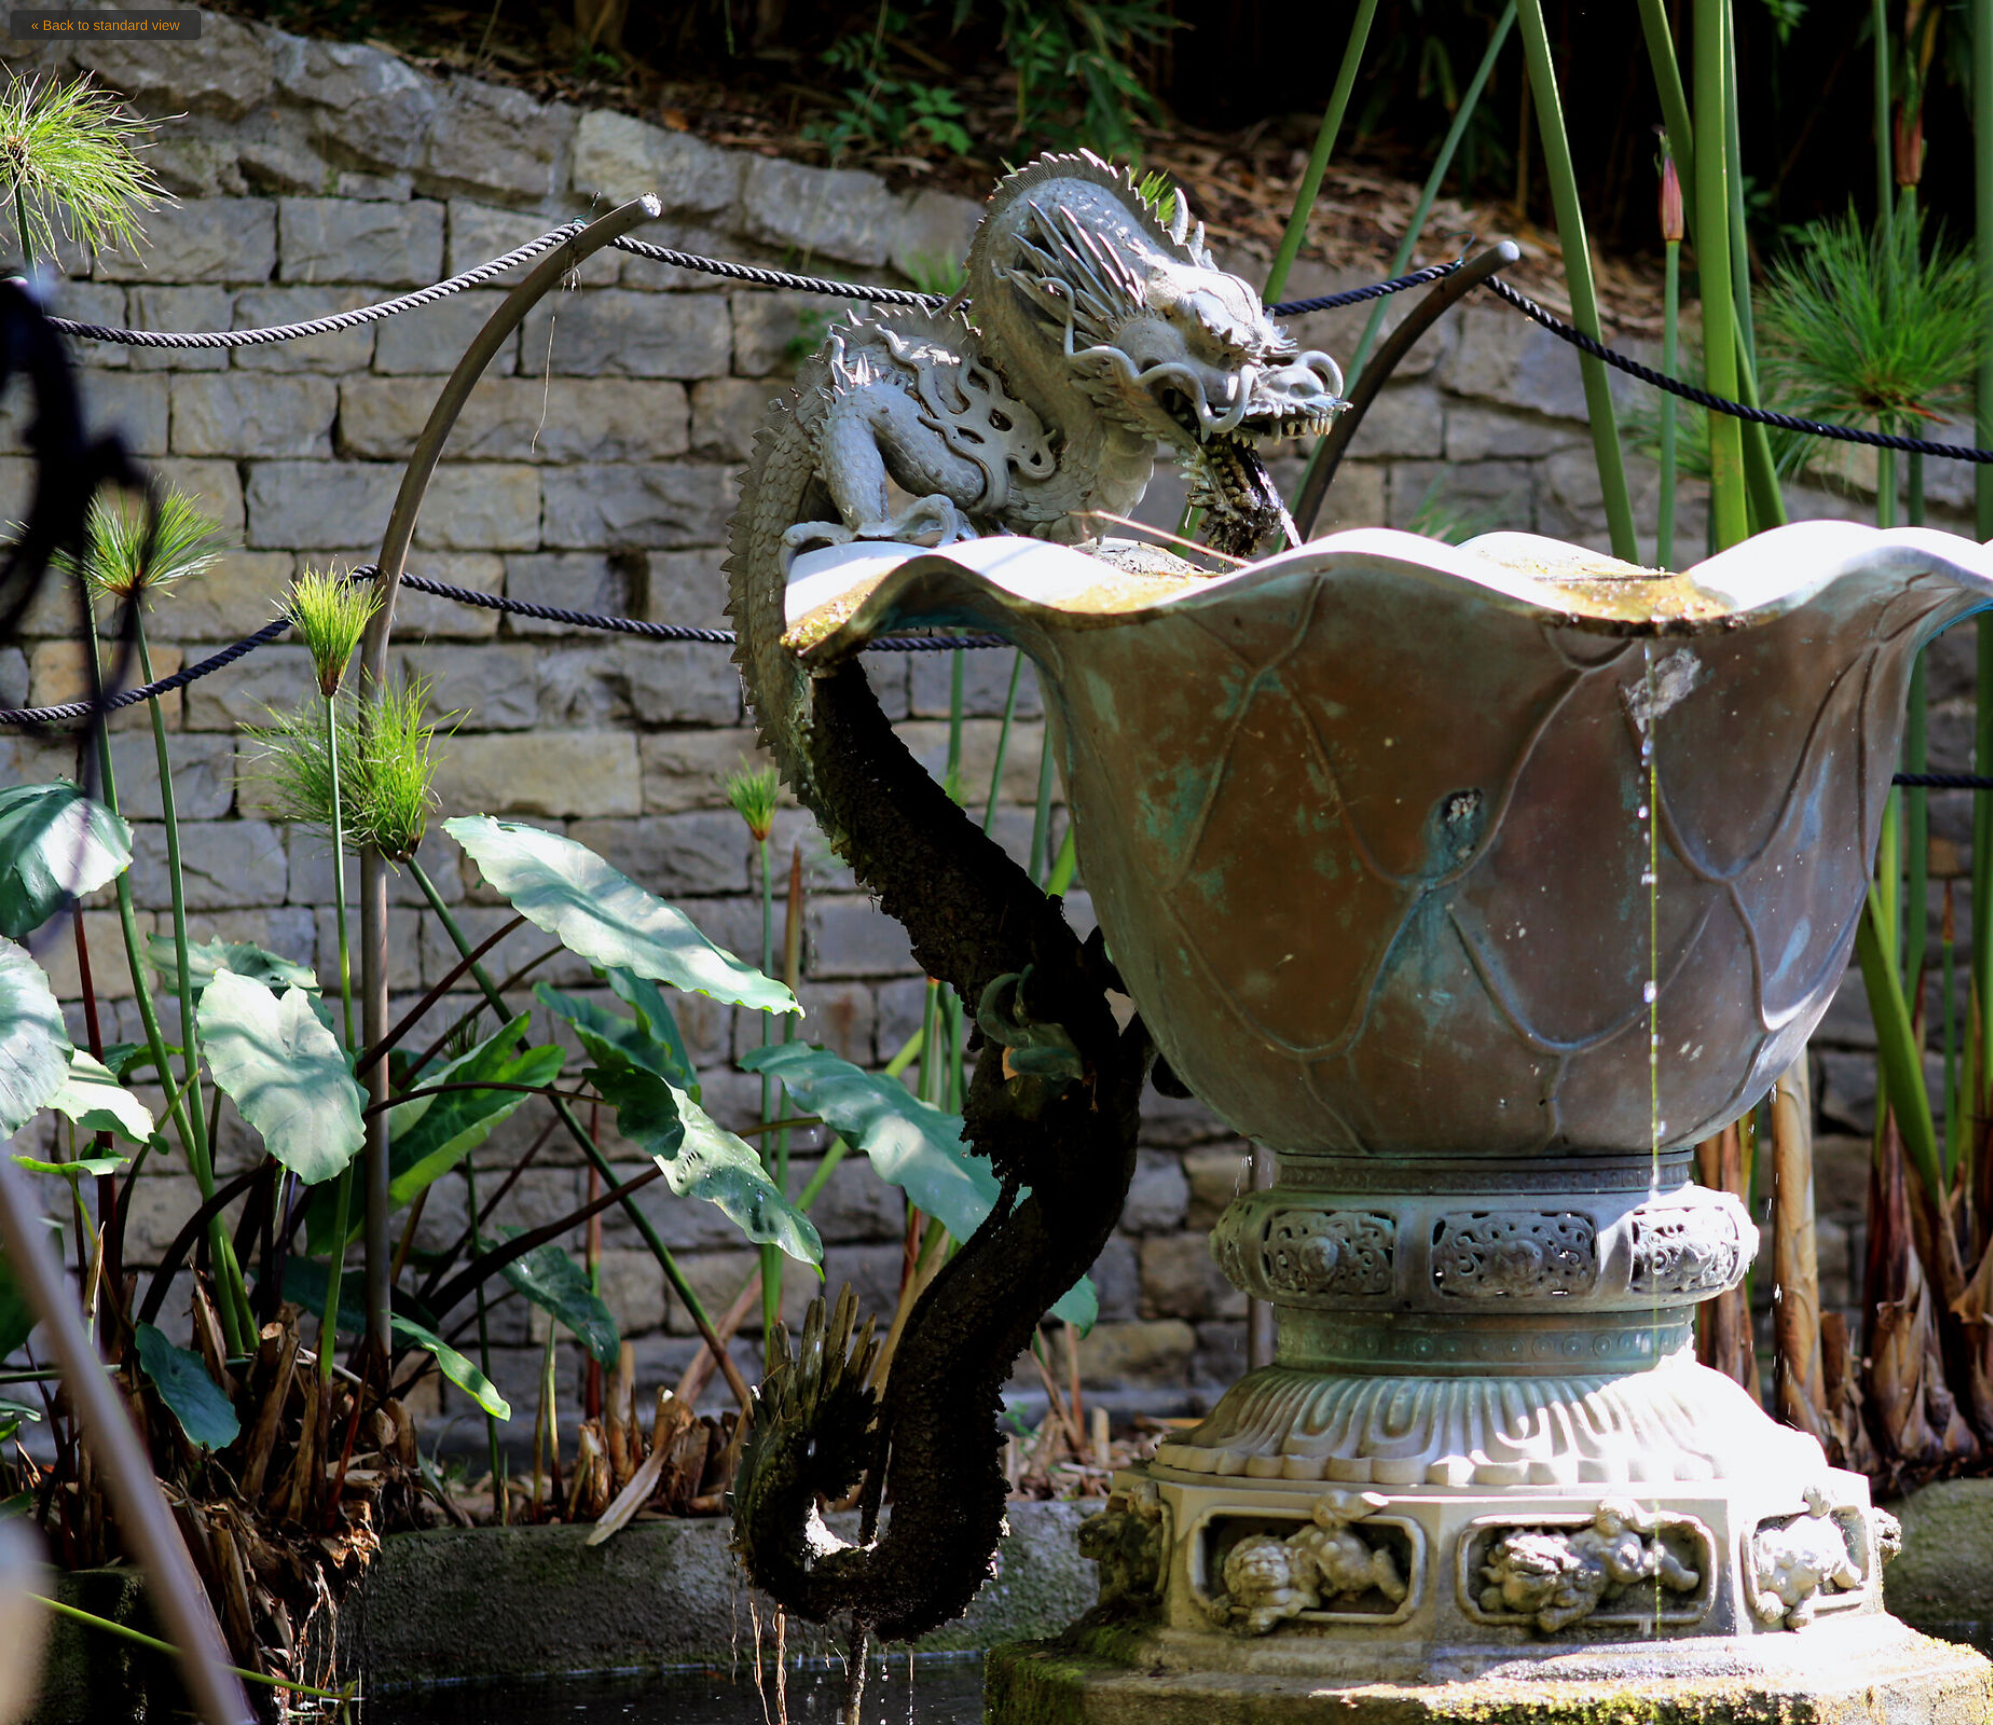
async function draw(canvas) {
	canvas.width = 1993;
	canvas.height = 1725;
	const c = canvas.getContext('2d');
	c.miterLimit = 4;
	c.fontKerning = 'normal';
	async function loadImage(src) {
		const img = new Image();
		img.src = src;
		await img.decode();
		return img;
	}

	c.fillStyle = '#fff';
	c.fillRect(0, 0, 1993, 1725);
	c.drawImage(await loadImage('img1.png'), 0, 0, 1993, 1725);
	c.fillStyle = '#292929cc';
	c.beginPath();
	c.roundRect(10, 10, 191, 30, 6);
	c.fill();
	c.beginPath();
	c.roundRect(10.5, 10.5, 190, 29, 5.5);
	c.strokeStyle = '#353735cc';
	c.stroke();
	c.font = '14px Liberation Sans';
	c.fillStyle = '#d3830a';
	c.fillText('« Back to standard view', 31, 30);
}

draw(document.querySelector('canvas'));
